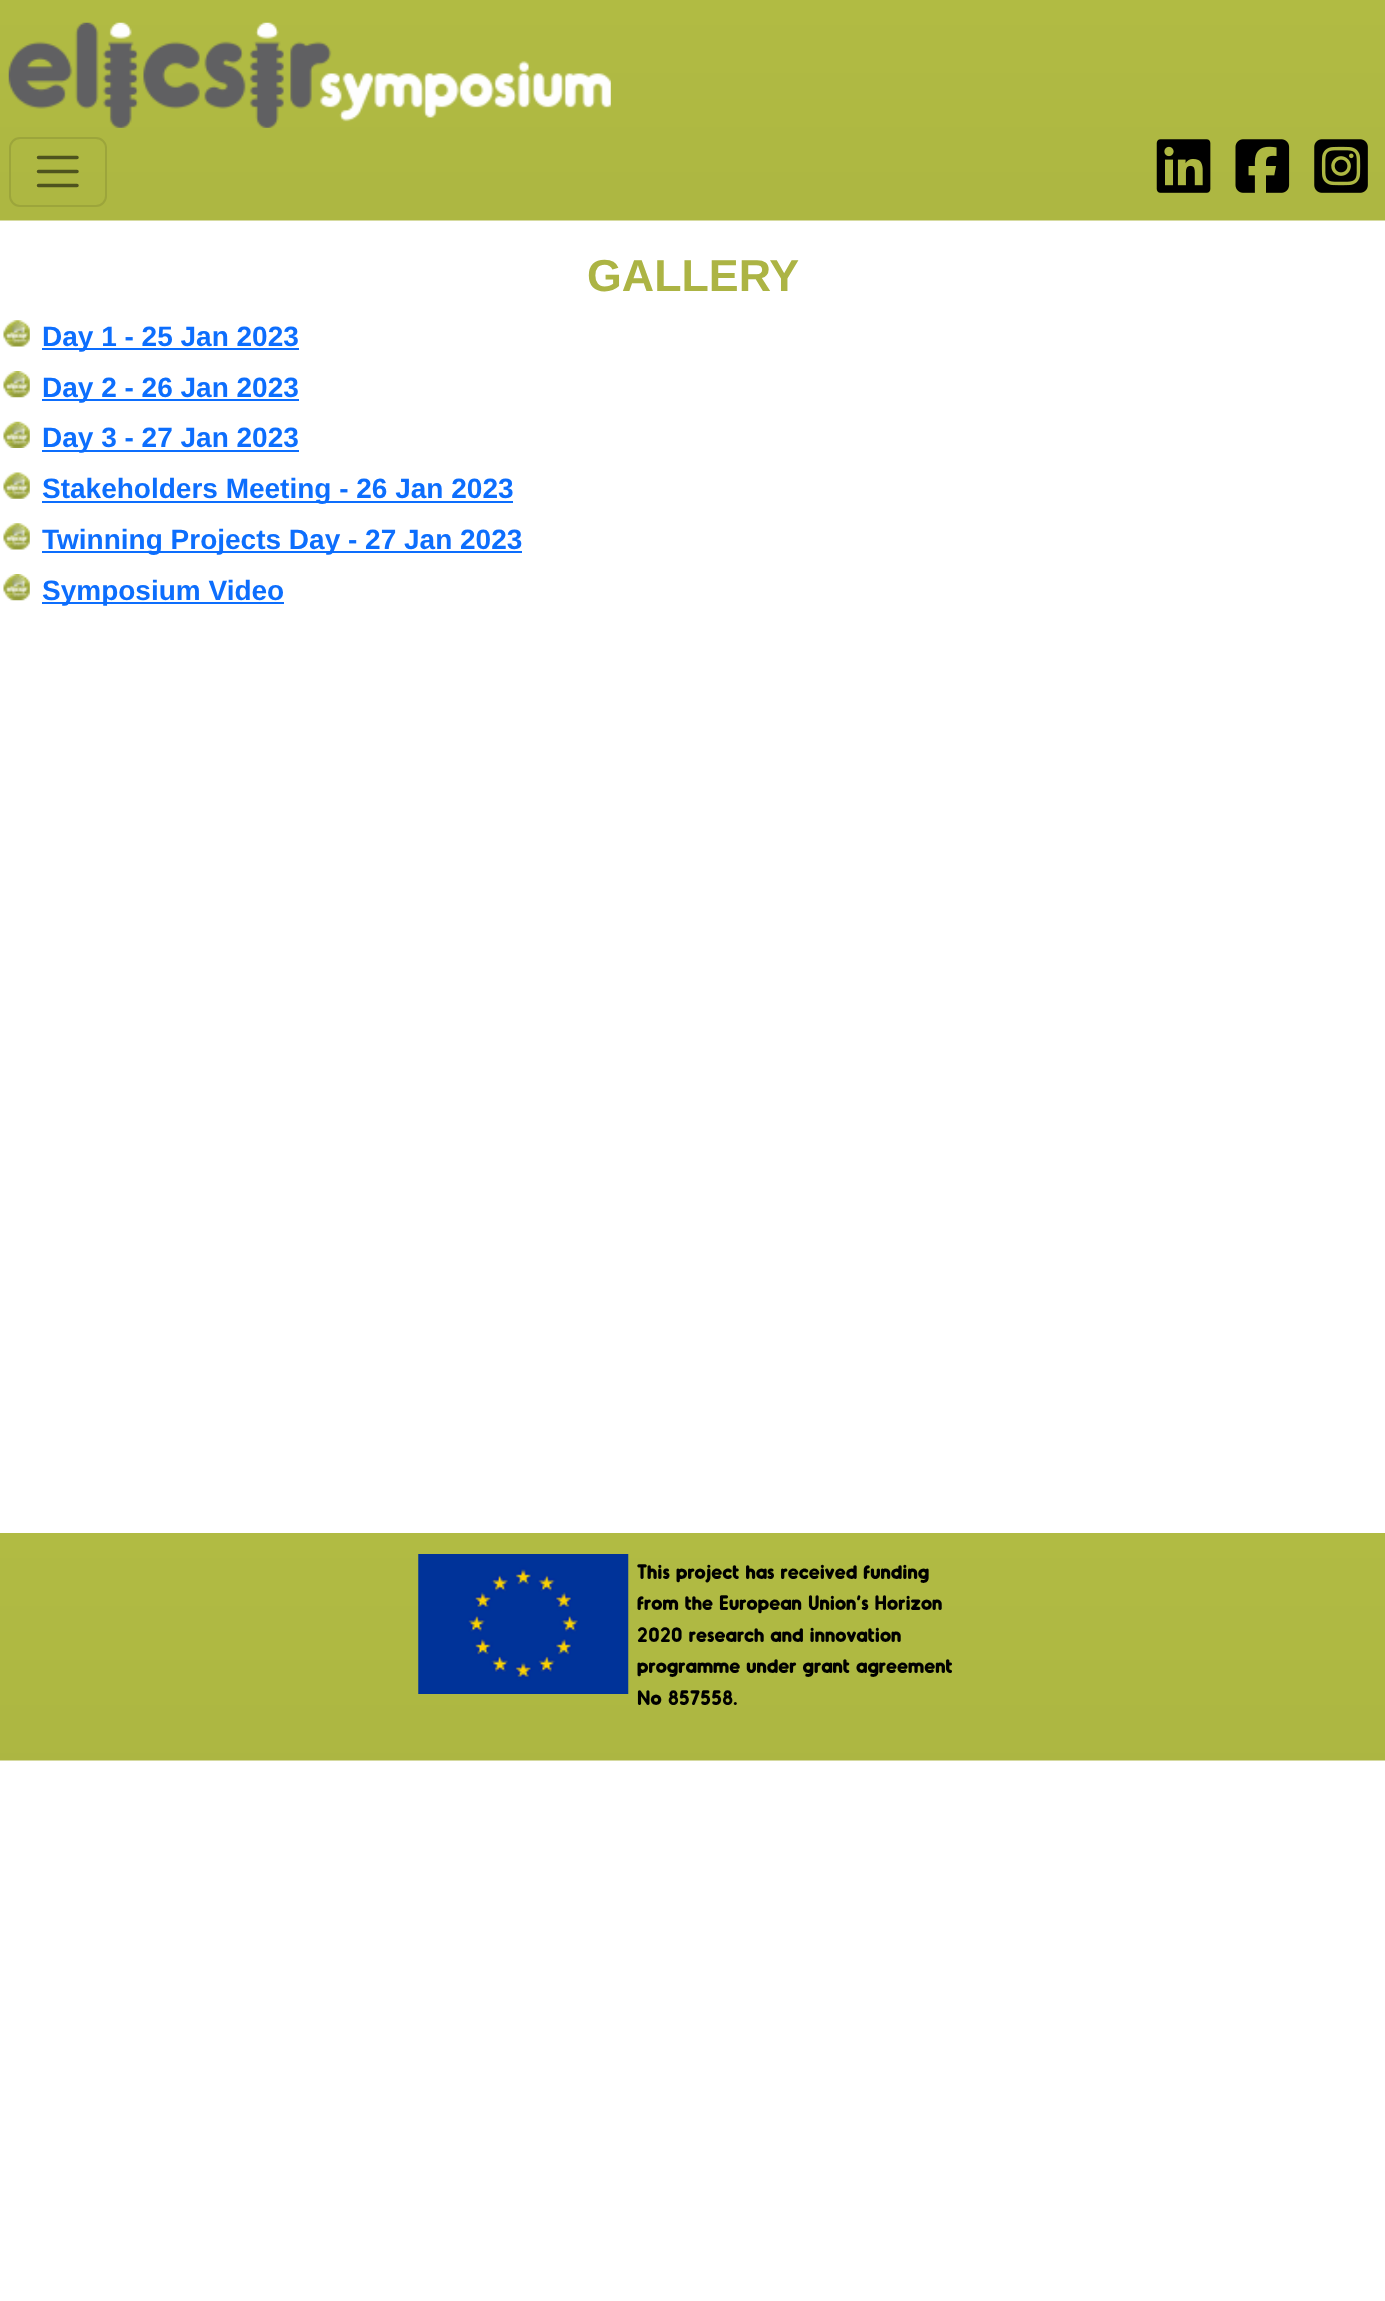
async function draw(canvas) {
	canvas.width = 1385;
	canvas.height = 2301;
	const c = canvas.getContext('2d');
	c.miterLimit = 4;
	c.fontKerning = 'normal';
	async function loadImage(src) {
		const img = new Image();
		img.src = src;
		await img.decode();
		return img;
	}

	c.fillStyle = '#fff';
	c.fillRect(0, 0, 1385, 2301);
	c.drawImage(await loadImage('img1.png'), 0, 0, 1385, 221);
	c.drawImage(await loadImage('img2.png'), 8, 22, 603, 106);
	c.beginPath();
	c.roundRect(10, 138, 96, 68, 10);
	c.strokeStyle = '#9ca53b';
	c.lineWidth = 2;
	c.stroke();
	c.beginPath();
	c.moveTo(38.5, 157.5);
	c.lineTo(77, 157.5);
	c.moveTo(38.5, 171.5);
	c.lineTo(77, 171.5);
	c.moveTo(38.5, 185.5);
	c.lineTo(77, 185.5);
	c.strokeStyle = '#4e531e';
	c.lineWidth = 3.5;
	c.lineCap = 'round';
	c.stroke();
	c.drawImage(await loadImage('img3.png'), 1156, 139, 55, 54);
	c.drawImage(await loadImage('img4.png'), 1235, 139, 55, 54);
	c.drawImage(await loadImage('img5.png'), 1314, 139, 54, 54);
	c.font = 'bold 44.75px Liberation Sans';
	c.fillStyle = '#acb444';
	c.fillText('GALLERY', 587, 291);
	c.drawImage(await loadImage('img6.png'), 3, 320, 27, 27);
	c.fillStyle = '#0d6efd';
	c.fillRect(42, 348, 257, 2);
	c.font = 'bold 28px Liberation Sans';
	c.fillText('Day 1 - 25 Jan 2023', 42, 346);
	c.drawImage(await loadImage('img7.png'), 3, 371, 27, 27);
	c.fillRect(42, 399, 257, 2);
	c.fillText('Day 2 - 26 Jan 2023', 42, 397);
	c.drawImage(await loadImage('img8.png'), 3, 421, 27, 27);
	c.fillRect(42, 450, 257, 2);
	c.fillText('Day 3 - 27 Jan 2023', 42, 447);
	c.drawImage(await loadImage('img9.png'), 3, 472, 27, 27);
	c.fillRect(42, 501, 471, 2);
	c.fillText('Stakeholders Meeting - 26 Jan 2023', 42, 498);
	c.drawImage(await loadImage('img6.png'), 3, 523, 27, 27);
	c.fillRect(42, 551, 480, 2);
	c.fillText('Twinning Projects Day - 27 Jan 2023', 42, 549);
	c.drawImage(await loadImage('img7.png'), 3, 574, 27, 27);
	c.fillRect(42, 602, 242, 2);
	c.fillText('Symposium Video', 42, 600);
	c.drawImage(await loadImage('img10.png'), 0, 1533, 1385, 228);
	c.drawImage(await loadImage('img11.png'), 418, 1554, 211, 140);
	c.font = 'bold 21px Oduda';
	c.fillStyle = '#000';
	for (const [text, x, y] of [
		['This project has received funding', 637, 1579],
		['from the European Union\'s Horizon', 637, 1610],
		['2020 research and innovation', 637, 1642],
		['programme under grant agreement', 637, 1673],
		['No 857558.', 637, 1705],
	]) {
		c.fillText(text, x, y);
	}
}

draw(document.querySelector('canvas'));
